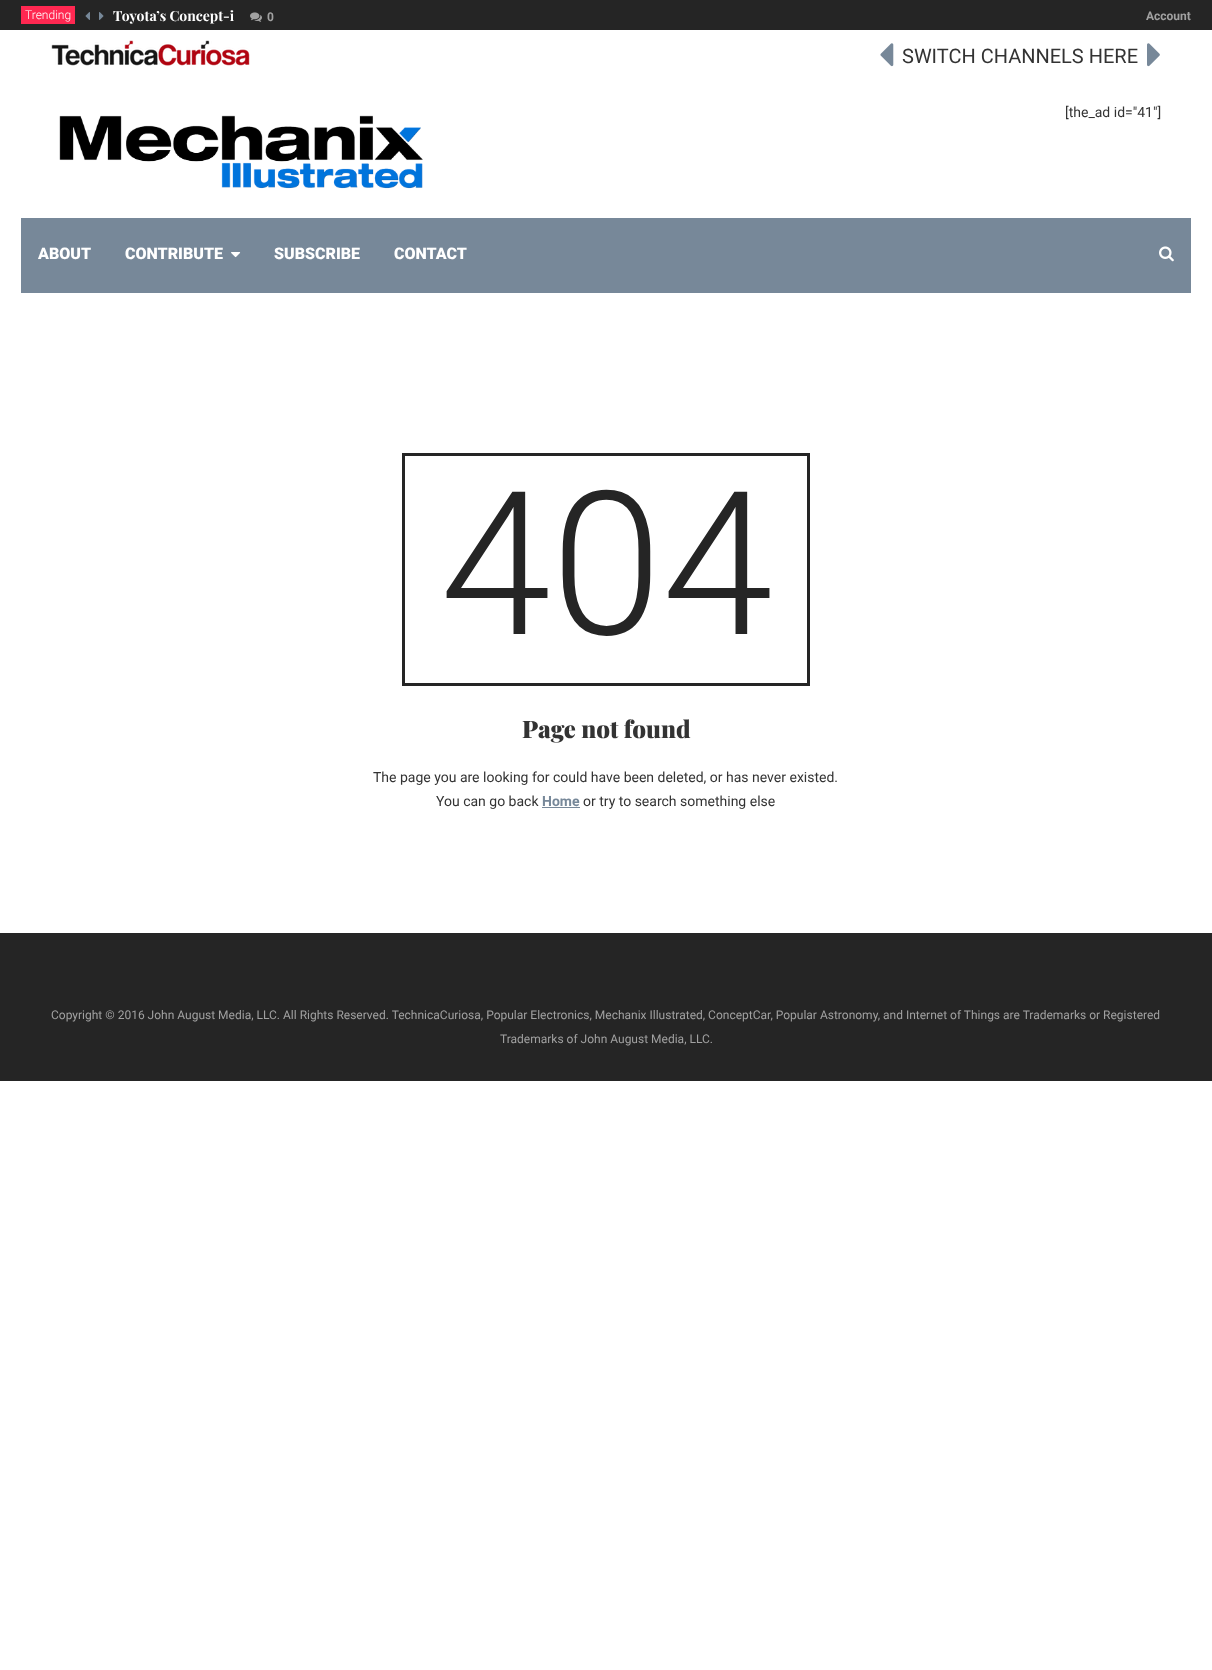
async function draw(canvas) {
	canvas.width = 1212;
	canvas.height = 1670;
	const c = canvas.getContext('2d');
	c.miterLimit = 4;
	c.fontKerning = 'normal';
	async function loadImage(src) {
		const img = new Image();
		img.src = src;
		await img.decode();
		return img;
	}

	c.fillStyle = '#fff';
	c.fillRect(0, 0, 1212, 1670);
	c.fillStyle = '#252525';
	c.fillRect(0, 0, 1212, 30);
	c.fillStyle = '#ff2851';
	c.fillRect(21, 6, 54, 18);
	c.font = '300 12px Roboto';
	c.fillStyle = '#fff';
	c.fillText('Trending', 25, 19);
	c.drawImage(await loadImage('img1.png'), 85, 12, 5, 8);
	c.drawImage(await loadImage('img2.png'), 99, 12, 5, 8);
	c.font = 'bold 14px Playfair Display';
	c.fillText('Toyota’s Concept-i', 113, 21);
	c.drawImage(await loadImage('img3.png'), 250, 12, 12, 10);
	c.font = 'bold 12px Roboto';
	c.fillStyle = '#a1a1a1';
	c.fillText('0', 267, 21);
	c.fillText('Account', 1146, 20);
	c.drawImage(await loadImage('img4.png'), 51, 40, 199, 26);
	c.drawImage(await loadImage('img5.png'), 880, 43, 14, 24);
	c.font = '20px Roboto';
	c.fillStyle = '#333';
	c.fillText('SWITCH CHANNELS HERE', 902, 63);
	c.drawImage(await loadImage('img6.png'), 1147, 43, 13, 24);
	c.font = '14px Roboto';
	c.fillText('[the_ad id="41"]', 1065, 117);
	c.drawImage(await loadImage('img7.png'), 59, 115, 364, 74);
	c.fillStyle = '#789';
	c.fillRect(21, 218, 1170, 75);
	c.font = '900 16px Roboto';
	c.fillStyle = '#fff';
	c.fillText('ABOUT', 38, 259);
	c.fillText('CONTRIBUTE', 125, 259);
	c.drawImage(await loadImage('img8.png'), 231, 252, 10, 6);
	c.fillText('SUBSCRIBE', 274, 259);
	c.fillText('CONTACT', 394, 259);
	c.drawImage(await loadImage('img9.png'), 1159, 246, 15, 16);
	c.strokeStyle = '#252525';
	c.lineWidth = 3;
	c.strokeRect(403.5, 454.5, 405, 230);
	c.font = '300 200px Roboto';
	c.fillStyle = '#252525';
	c.fillText('404', 440, 634);
	c.font = '900 24px Playfair Display';
	c.fillStyle = '#333';
	c.fillText('Page not found', 522, 738);
	c.font = '14px Roboto';
	c.fillText('The page you are looking for could have been deleted, or has never existed.', 373, 782);
	c.fillText('You can go back', 436, 806);
	c.font = 'bold 14px Roboto';
	c.fillStyle = '#789';
	c.fillText('Home', 542, 806);
	c.fillRect(542, 807, 38, 1);
	c.font = '14px Roboto';
	c.fillStyle = '#333';
	c.fillText('or try to search something else', 583, 806);
	c.fillStyle = '#252525';
	c.fillRect(0, 933, 1212, 148);
	c.font = '12px Roboto';
	c.fillStyle = '#a1a1a1';
	c.fillText('Copyright © 2016 John August Media, LLC. All Rights Reserved. TechnicaCuriosa, Popular Electronics, Mechanix Illustrated, ConceptCar, Popular Astronomy, and Internet of Things are Trademarks or Registered', 51, 1019);
	c.fillText('Trademarks of John August Media, LLC.', 500, 1043);
}

draw(document.querySelector('canvas'));
